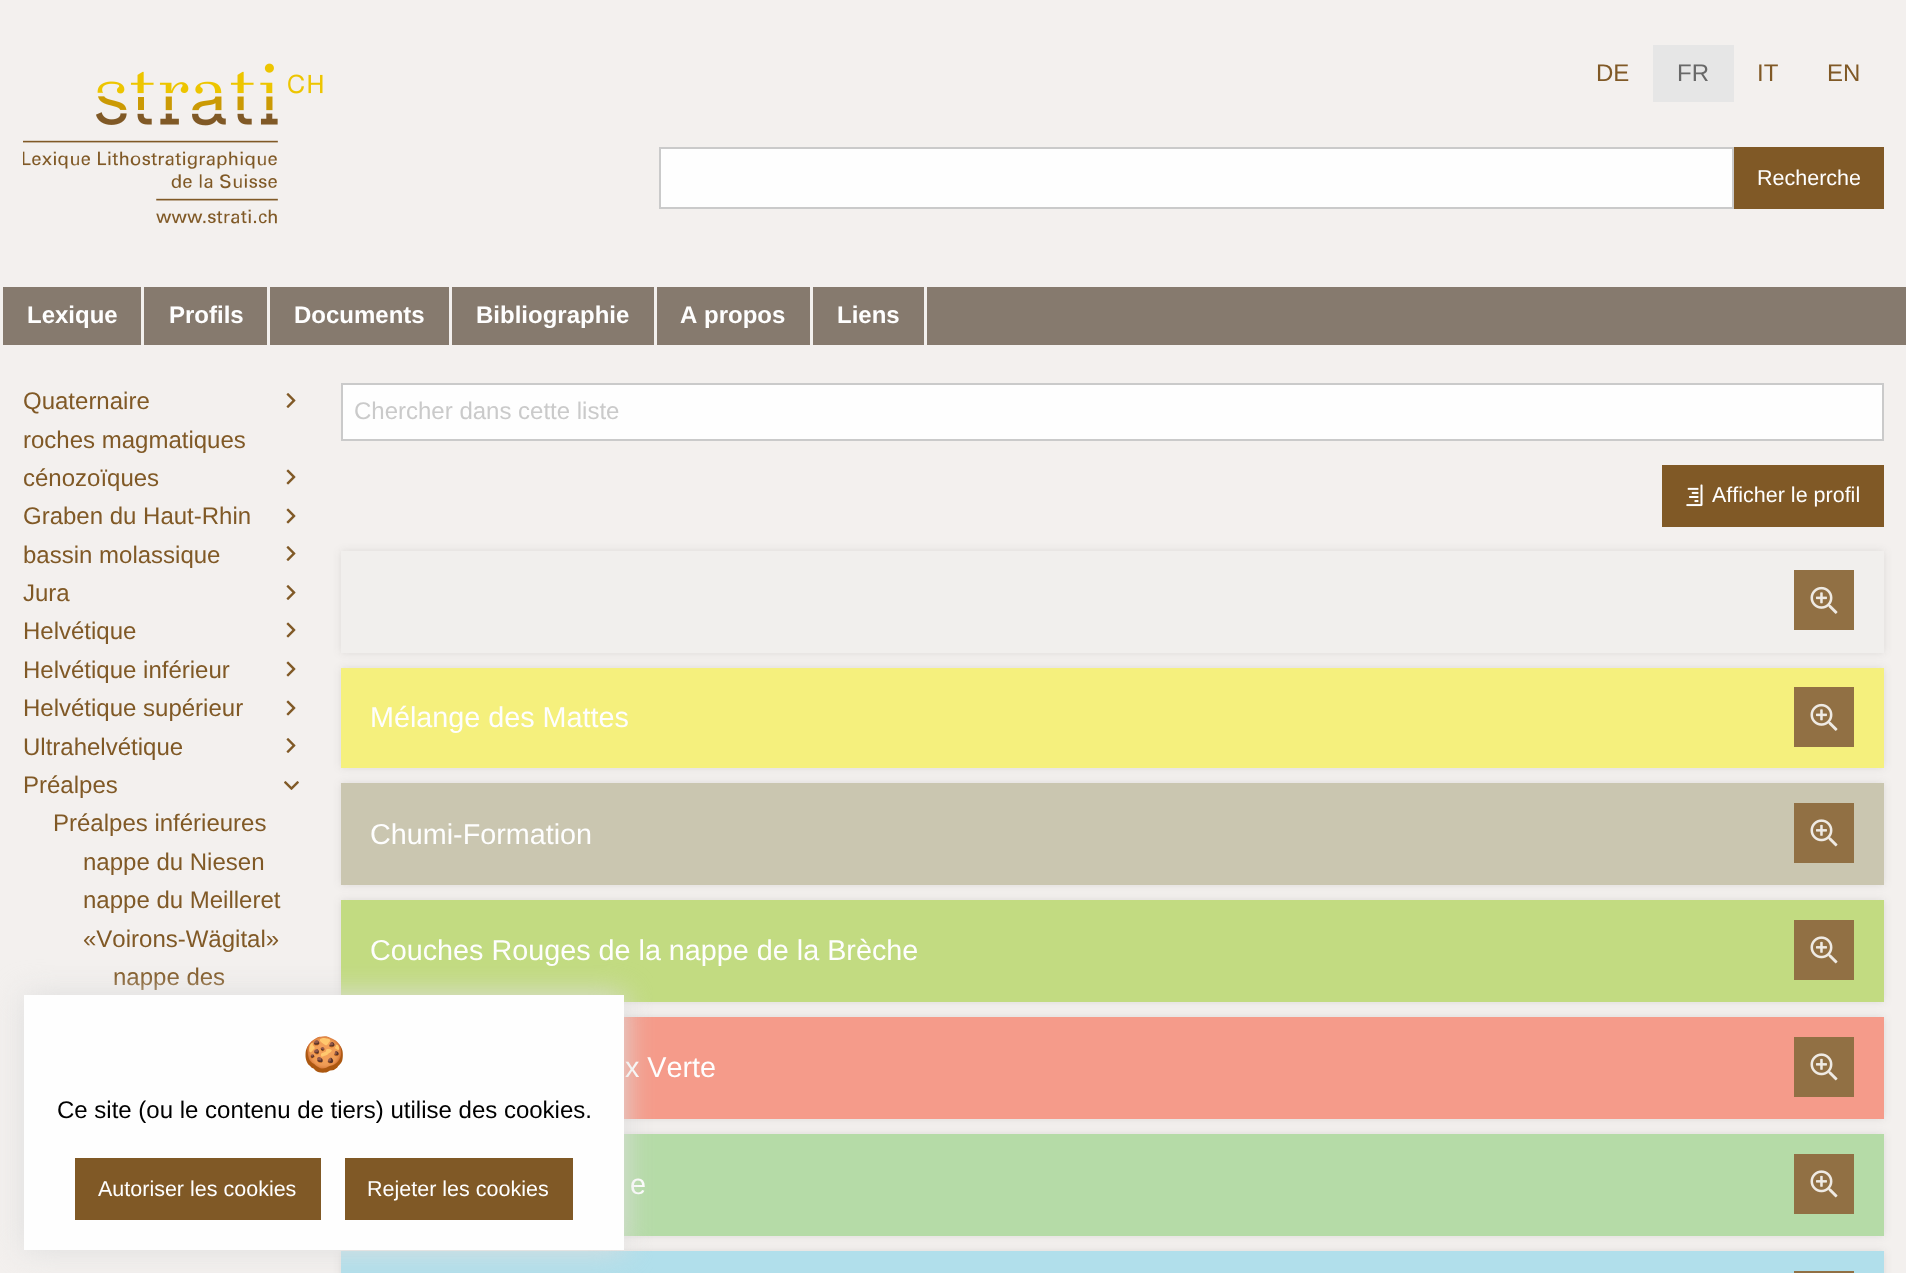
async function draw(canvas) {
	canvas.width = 1906;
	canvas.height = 1273;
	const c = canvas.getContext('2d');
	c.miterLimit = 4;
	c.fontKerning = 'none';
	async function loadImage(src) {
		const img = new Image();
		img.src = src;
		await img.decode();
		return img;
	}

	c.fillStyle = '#f3f0ee';
	c.fillRect(0, 0, 1906, 1273);
	c.drawImage(await loadImage('img1.png'), 23, 63, 300, 161);
	c.font = '24px Liberation Sans';
	c.fillStyle = '#805926';
	c.fillText('DE', 1596, 81);
	c.fillStyle = '#e6e6e6';
	c.fillRect(1653, 45, 81, 57);
	c.fillStyle = '#686868';
	c.fillText('FR', 1677, 81);
	c.fillStyle = '#805926';
	c.fillText('IT', 1757, 81);
	c.fillText('EN', 1827, 81);
	c.fillStyle = '#fefefe';
	c.beginPath();
	c.rect(660, 148, 1073, 60);
	c.fill();
	c.strokeStyle = '#cacaca';
	c.lineWidth = 2;
	c.stroke();
	c.fillStyle = '#805926';
	c.fillRect(1734, 147, 150, 62);
	c.font = '21.5px Liberation Sans';
	c.fillStyle = '#fefefe';
	c.fillText('Recherche', 1757, 185);
	c.fillStyle = '#867a6e';
	c.fillRect(3, 287, 1903, 58);
	c.fillStyle = '#f3f0ee';
	c.fillRect(141, 287, 3, 58);
	c.font = 'bold 24px Liberation Sans';
	c.fillStyle = '#fefefe';
	c.fillText('Lexique', 27, 323);
	c.fillStyle = '#f3f0ee';
	c.fillRect(267, 287, 3, 58);
	c.fillStyle = '#fefefe';
	c.fillText('Profils', 169, 323);
	c.fillStyle = '#f3f0ee';
	c.fillRect(449, 287, 3, 58);
	c.fillStyle = '#fefefe';
	c.fillText('Documents', 294, 323);
	c.fillStyle = '#f3f0ee';
	c.fillRect(654, 287, 3, 58);
	c.fillStyle = '#fefefe';
	c.fillText('Bibliographie', 476, 323);
	c.fillStyle = '#f3f0ee';
	c.fillRect(810, 287, 3, 58);
	c.fillStyle = '#fefefe';
	c.fillText('A propos', 680, 323);
	c.fillStyle = '#f3f0ee';
	c.fillRect(924, 287, 3, 58);
	c.fillStyle = '#fefefe';
	c.fillText('Liens', 837, 323);
	c.font = '24px Liberation Sans';
	c.fillStyle = '#805926';
	c.fillText('Quaternaire', 23, 409);
	c.drawImage(await loadImage('img2.png'), 286, 393, 10, 15);
	c.fillText('roches magmatiques', 23, 448);
	c.fillText('cénozoïques', 23, 486);
	c.drawImage(await loadImage('img3.png'), 286, 469, 10, 16);
	c.fillText('Graben du Haut-Rhin', 23, 524);
	c.drawImage(await loadImage('img3.png'), 286, 508, 10, 16);
	c.fillText('bassin molassique', 23, 563);
	c.drawImage(await loadImage('img2.png'), 286, 546, 10, 15);
	c.fillText('Jura', 23, 601);
	c.drawImage(await loadImage('img2.png'), 286, 585, 10, 15);
	c.fillText('Helvétique', 23, 639);
	c.drawImage(await loadImage('img3.png'), 286, 622, 10, 16);
	c.fillText('Helvétique inférieur', 23, 678);
	c.drawImage(await loadImage('img3.png'), 286, 661, 10, 16);
	c.fillText('Helvétique supérieur', 23, 716);
	c.drawImage(await loadImage('img3.png'), 286, 700, 10, 16);
	c.fillText('Ultrahelvétique', 23, 755);
	c.drawImage(await loadImage('img2.png'), 286, 738, 10, 15);
	c.fillText('Préalpes', 23, 793);
	c.drawImage(await loadImage('img4.png'), 284, 781, 15, 9);
	for (const [text, x, y] of [
		['Préalpes inférieures', 53, 831],
		['nappe du Niesen', 83, 870],
		['nappe du Meilleret', 83, 908],
		['«Voirons-Wägital»', 83, 947],
		['nappe des', 113, 985],
	]) {
		c.fillText(text, x, y);
	}
	c.fillStyle = '#fefefe';
	c.beginPath();
	c.rect(342, 384, 1541, 56);
	c.fill();
	c.stroke();
	c.fillStyle = '#cacaca';
	c.fillText('Chercher dans cette liste', 354, 419);
	c.fillStyle = '#805926';
	c.fillRect(1662, 465, 222, 62);
	c.drawImage(await loadImage('img5.png'), 1686, 484, 17, 23);
	c.font = '21.5px Liberation Sans';
	c.fillStyle = '#fefefe';
	c.fillText('Afficher le profil', 1712, 502);
	c.fillStyle = '#2424241a';
	c.filter = 'blur(4px)';
	c.beginPath();
	c.rect(341, 551, 1543, 102);
	c.fill();
	c.filter = 'none';
	c.fillStyle = '#f1efed';
	c.fillRect(341, 551, 1543, 102);
	c.fillStyle = '#917044';
	c.fillRect(1794, 570, 60, 60);
	c.drawImage(await loadImage('img6.png'), 1810, 586, 28, 28);
	c.fillStyle = '#2424241a';
	c.filter = 'blur(4px)';
	c.beginPath();
	c.rect(341, 668, 1543, 100);
	c.fill();
	c.filter = 'none';
	c.fillStyle = '#f5f07d';
	c.fillRect(341, 668, 1543, 100);
	c.font = '28.75px Liberation Sans';
	c.fillStyle = '#fefefe';
	c.fillText('Mélange des Mattes', 370, 727);
	c.fillStyle = '#917044';
	c.fillRect(1794, 687, 60, 60);
	c.drawImage(await loadImage('img6.png'), 1810, 703, 28, 28);
	c.fillStyle = '#2424241a';
	c.filter = 'blur(4px)';
	c.beginPath();
	c.rect(341, 783, 1543, 102);
	c.fill();
	c.filter = 'none';
	c.fillStyle = '#cac6b0';
	c.fillRect(341, 783, 1543, 102);
	c.fillStyle = '#fefefe';
	c.fillText('Chumi-Formation', 370, 844);
	c.fillStyle = '#917044';
	c.fillRect(1794, 803, 60, 60);
	c.drawImage(await loadImage('img7.png'), 1810, 819, 28, 28);
	c.fillStyle = '#2424241a';
	c.filter = 'blur(4px)';
	c.beginPath();
	c.rect(341, 900, 1543, 102);
	c.fill();
	c.filter = 'none';
	c.fillStyle = '#c2db81';
	c.fillRect(341, 900, 1543, 102);
	c.fillStyle = '#fefefe';
	c.fillText('Couches Rouges de la nappe de la Brèche', 370, 960);
	c.fillStyle = '#917044';
	c.fillRect(1794, 920, 60, 60);
	c.drawImage(await loadImage('img7.png'), 1810, 936, 28, 28);
	c.fillStyle = '#2424241a';
	c.filter = 'blur(4px)';
	c.beginPath();
	c.rect(341, 1017, 1543, 102);
	c.fill();
	c.filter = 'none';
	c.fillStyle = '#f59b8a';
	c.fillRect(624, 1017, 1260, 102);
	c.fillStyle = '#fefefe';
	c.fillText('x Verte', 625, 1077);
	c.fillStyle = '#917044';
	c.fillRect(1794, 1037, 60, 60);
	c.drawImage(await loadImage('img7.png'), 1810, 1053, 28, 28);
	c.fillStyle = '#2424241a';
	c.filter = 'blur(4px)';
	c.beginPath();
	c.rect(341, 1134, 1543, 102);
	c.fill();
	c.filter = 'none';
	c.fillStyle = '#b5dba7';
	c.fillRect(624, 1134, 1260, 102);
	c.fillStyle = '#fefefe';
	c.fillText('e', 630, 1194);
	c.fillStyle = '#917044';
	c.fillRect(1794, 1154, 60, 60);
	c.drawImage(await loadImage('img7.png'), 1810, 1170, 28, 28);
	c.fillStyle = '#2424241a';
	c.filter = 'blur(4px)';
	c.beginPath();
	c.rect(341, 1251, 1543, 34);
	c.fill();
	c.filter = 'none';
	c.fillStyle = '#b1dfeb';
	c.fillRect(341, 1251, 1543, 22);
	c.fillStyle = '#917044';
	c.fillRect(1794, 1271, 60, 2);
	c.fillStyle = '#ddd';
	c.filter = 'blur(15px)';
	c.beginPath();
	c.rect(24, 995, 600, 255);
	c.fill();
	c.filter = 'none';
	c.fillStyle = '#fefefe';
	c.fillRect(24, 995, 600, 255);
	c.font = '34px Noto Color Emoji';
	c.fillStyle = '#686868';
	c.fillText('🍪', 303, 1066);
	c.font = '24px Liberation Sans';
	c.fillStyle = '#000';
	c.fillText('Ce site (ou le contenu de tiers) utilise des cookies.', 57, 1118);
	c.fillStyle = '#805926';
	c.fillRect(75, 1158, 246, 62);
	c.font = '21.5px Liberation Sans';
	c.fillStyle = '#fefefe';
	c.fillText('Autoriser les cookies', 98, 1196);
	c.fillStyle = '#805926';
	c.fillRect(345, 1158, 228, 62);
	c.fillStyle = '#fefefe';
	c.fillText('Rejeter les cookies', 367, 1196);
}

draw(document.querySelector('canvas'));
